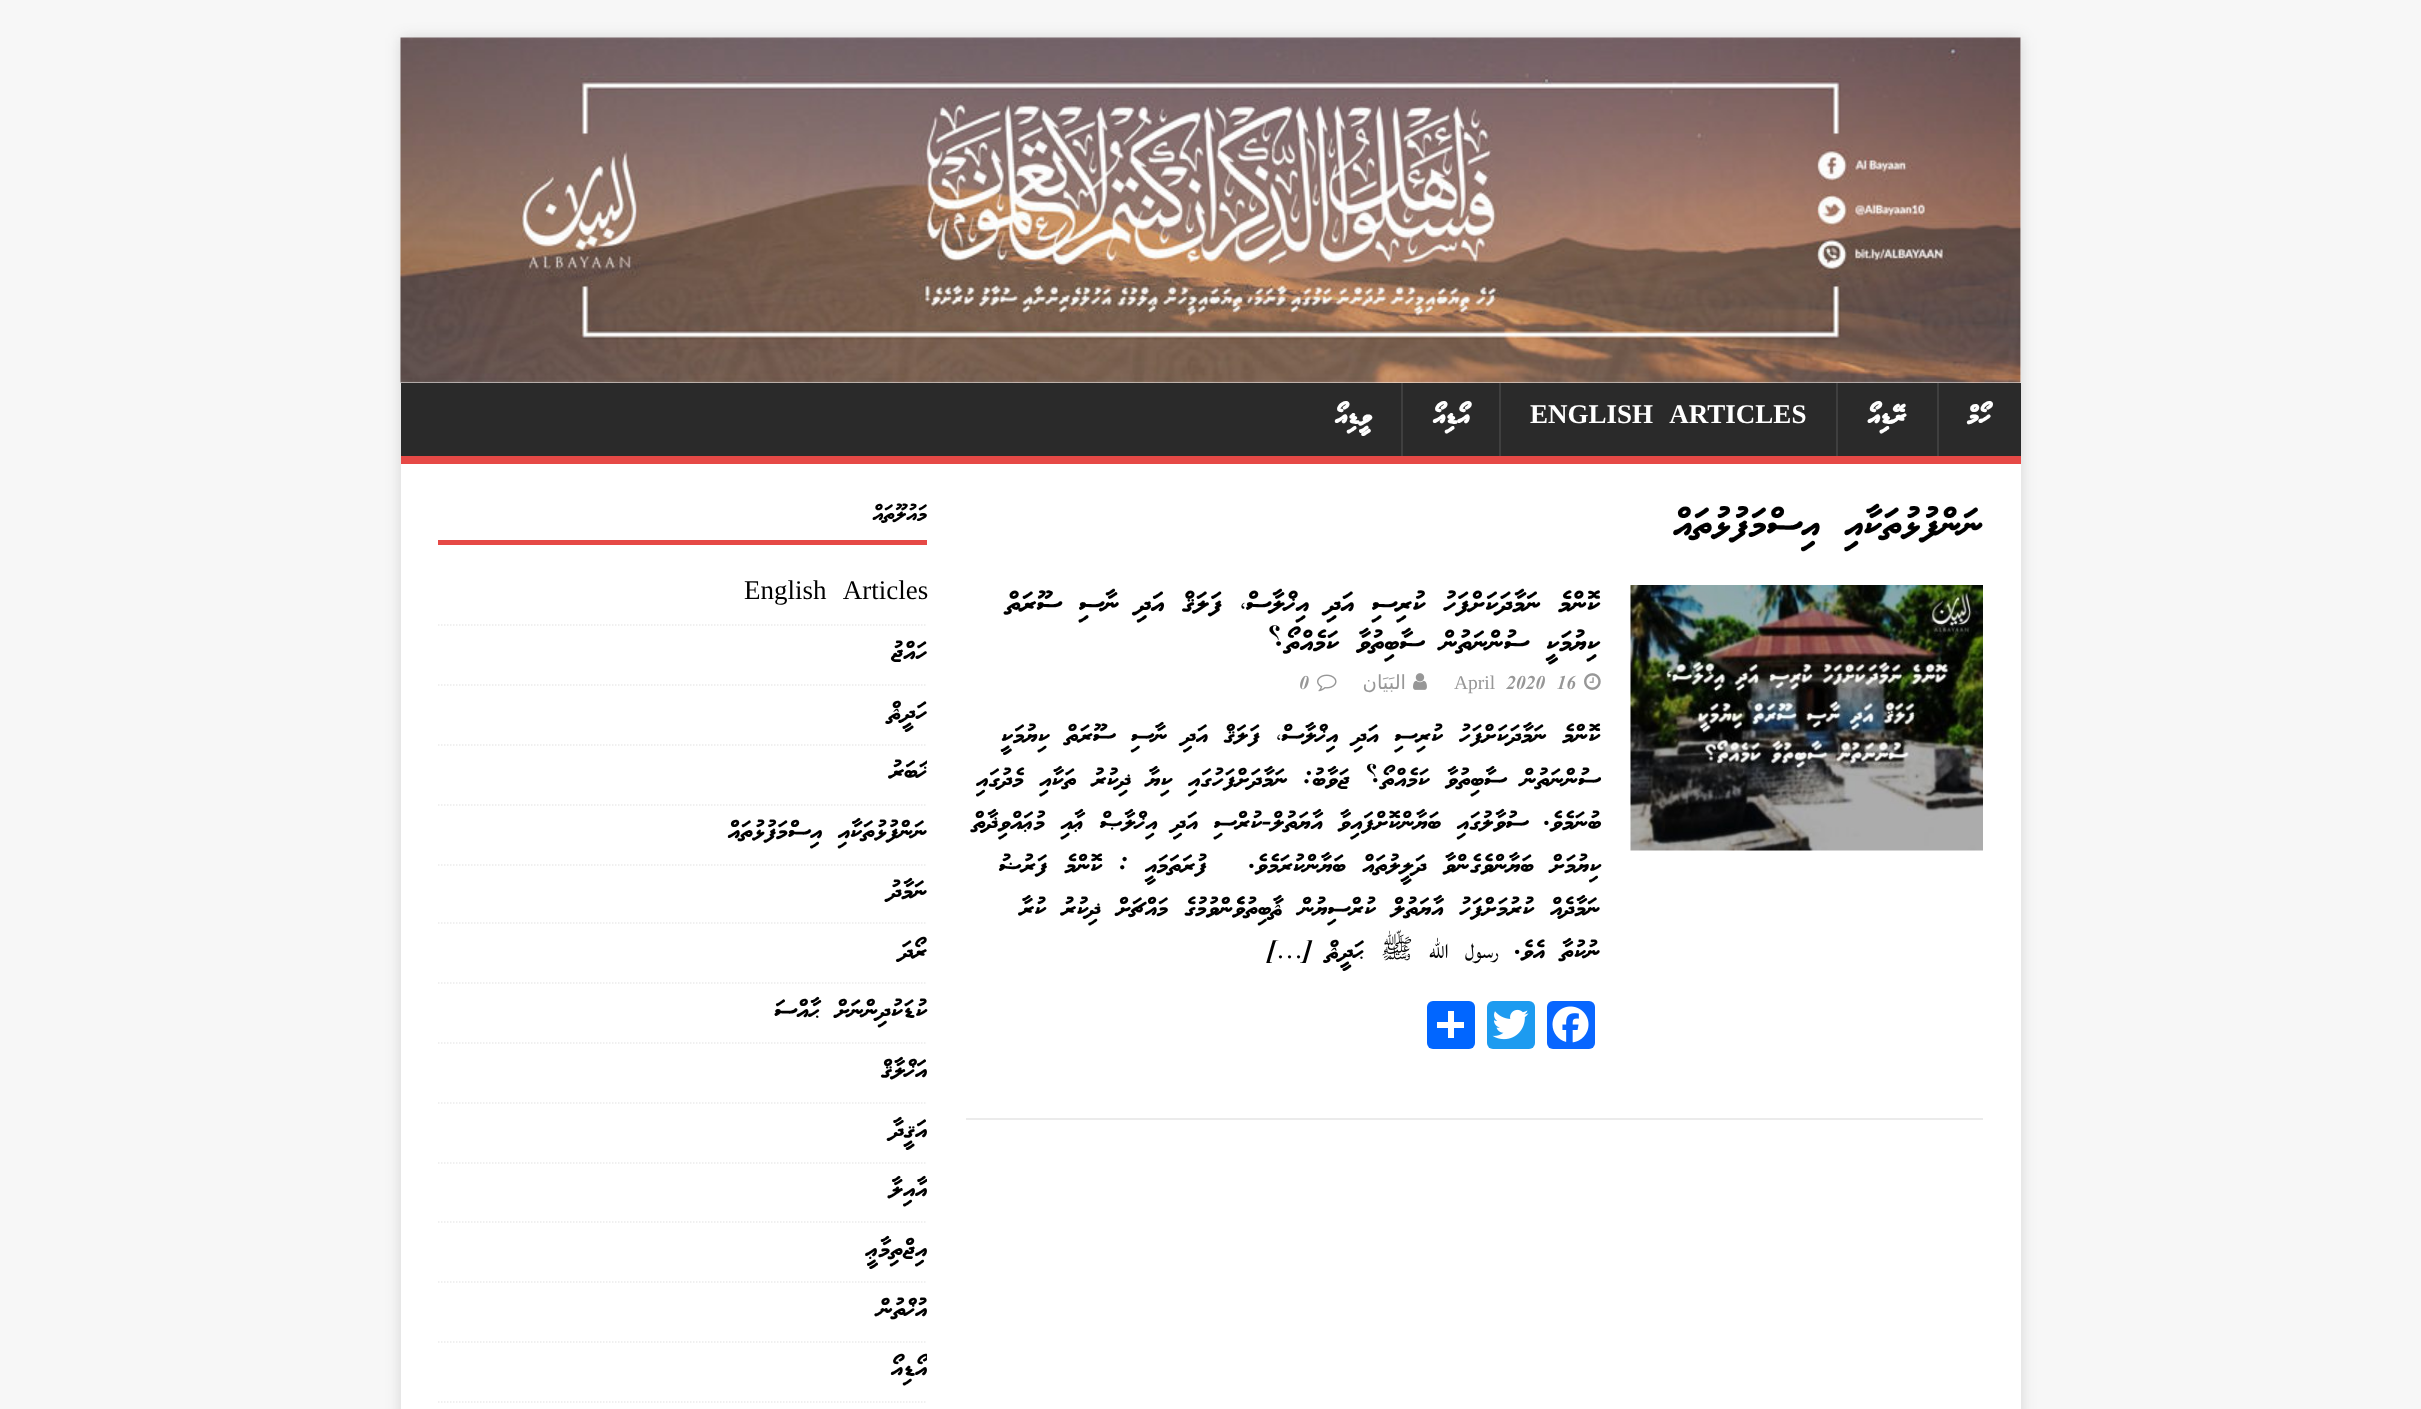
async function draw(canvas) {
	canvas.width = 2421;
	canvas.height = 1409;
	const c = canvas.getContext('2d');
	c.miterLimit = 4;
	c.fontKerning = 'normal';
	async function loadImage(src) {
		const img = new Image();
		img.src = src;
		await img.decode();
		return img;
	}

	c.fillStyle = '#f7f7f7';
	c.fillRect(0, 0, 2421, 1409);
	c.fillStyle = '#3232322b';
	c.filter = 'blur(7.5px)';
	c.beginPath();
	c.rect(401, 38, 1620, 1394);
	c.fill();
	c.filter = 'none';
	c.fillStyle = '#fff';
	c.fillRect(401, 38, 1620, 345);
	c.drawImage(await loadImage('img1.png'), 400, 37, 1621, 346);
	c.fillStyle = '#2a2a2a';
	c.fillRect(401, 383, 1620, 73);
	c.fillStyle = '#e64946';
	c.fillRect(401, 456, 1620, 8);
	c.direction = 'rtl';
	c.font = 'bold 27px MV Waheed';
	c.fillStyle = '#fff';
	c.fillText('ހޯމް', 1990, 423);
	c.fillStyle = '#3f3f3f';
	c.fillRect(1937, 383, 2, 73);
	c.fillStyle = '#fff';
	c.fillText('ރޭޑިއޯ', 1906, 423);
	c.fillStyle = '#3f3f3f';
	c.fillRect(1836, 383, 2, 73);
	c.wordSpacing = '11px';
	c.direction = 'ltr';
	c.font = 'bold 27px Liberation Serif';
	c.fillStyle = '#fff';
	c.fillText('ENGLISH ARTICLES', 1530, 423);
	c.fillStyle = '#3f3f3f';
	c.fillRect(1499, 383, 2, 73);
	c.wordSpacing = '0px';
	c.direction = 'rtl';
	c.font = 'bold 27px MV Waheed';
	c.fillStyle = '#fff';
	c.fillText('އޯޑިއޯ', 1469, 423);
	c.fillStyle = '#3f3f3f';
	c.fillRect(1401, 383, 2, 73);
	c.fillStyle = '#fff';
	c.fillText('ވީޑިއޯ', 1371, 423);
	c.fillRect(401, 464, 1620, 945);
	c.font = '42px MV Waheed';
	c.fillStyle = '#000';
	c.fillText('ނަންފުޅުތަކާއި އިސްމަފުޅުތައް', 1983, 535);
	c.fillStyle = '#ebebeb';
	c.fillRect(966, 1118, 1017, 2);
	c.drawImage(await loadImage('img2.png'), 1630, 585, 353, 266);
	c.font = '30px MV Waheed';
	c.fillStyle = '#000';
	c.fillText('ކޮންމެ ނަމާދަކަށްފަހު ކުރިސި އަދި އިޚްލާސް، ފަލަޤް އަދި ނާސި ސޫރަތް', 1600, 611);
	c.fillText('ކިޔުމަކީ ސުންނަތުން ސާބިތުވާ ކަމެއްތޯ؟', 1600, 650);
	c.drawImage(await loadImage('img3.png'), 1584, 673, 17, 17);
	c.direction = 'ltr';
	c.font = '19.5px MV Waheed';
	c.fillStyle = '#979797';
	c.fillText('2020 16', 1506, 689);
	c.font = '19.5px Liberation Serif';
	c.fillText('April', 1454, 689);
	c.drawImage(await loadImage('img4.png'), 1413, 673, 14, 17);
	c.direction = 'rtl';
	c.font = '19.5px DejaVu Sans';
	c.fillText('البَيَان', 1406, 689);
	c.drawImage(await loadImage('img5.png'), 1317, 674, 20, 18);
	c.direction = 'ltr';
	c.font = '19.5px MV Waheed';
	c.fillText('0', 1299, 689);
	c.direction = 'rtl';
	c.font = '27px MV Waheed';
	c.fillStyle = '#000';
	c.fillText('ކޮންމެ ނަމާދަކަށްފަހު ކުރިސި އަދި އިޚްލާސް، ފަލަޤް އަދި ނާސި ސޫރަތް ކިޔުމަކީ', 1600, 742);
	c.save();
	c.beginPath();
	c.rect(966, 717, 635, 371);
	c.clip();
	c.fillText('ސުންނަތުން ސާބިތުވާ ކަމެއްތޯ؟ ޖަވާބު: ނަމާދަށްފަހުގައި ކިޔާ ޛިކުރު ތަކާއި މެދުގައި', 1600, 786);
	c.restore();
	c.fillText('ބުނަމެވެ. ސުވާލުގައި ބަޔާންކޮށްފައިވާ އާޔަތުލް-ކުރްސި އަދި އިޚްލާޞް ޢާއި މުޢައްވިޛާތް', 1601, 829);
	c.wordSpacing = '1px';
	c.fillText('ކިޔުމަށް ބަޔާންވެގެންވާ ދަލީލުތައް ބަޔާންކުރަމެވެ.', 1601, 872);
	c.fillText('ފުރަތަމައީ : ކޮންމެ ފަރުޟު', 1207, 872);
	c.wordSpacing = '0px';
	c.fillText('ނަމާދެއް ކުރުމަށްފަހު އާޔަތުލް ކުރްސިޔުން ޘާބިތުވެެންވުމުގެ މައްޗަށް ޛިކުރު ކުރާ', 1600, 915);
	c.fillText('ނުކުތާ އެވެ.', 1600, 958);
	c.font = '27px Lateef';
	for (const [text, x, y] of [
		['رسول', 1499, 958],
		['الله', 1449, 958],
		['ﷺ', 1413, 958],
	]) {
		c.fillText(text, x, y);
	}
	c.font = '27px MV Waheed';
	c.fillText('ޙަދީޘް', 1364, 958);
	c.direction = 'ltr';
	c.fillText('[', 1267, 958);
	c.font = '27px Liberation Serif';
	c.fillText('…', 1276, 958);
	c.font = '27px MV Waheed';
	c.fillText(']', 1303, 958);
	c.fillStyle = '#0866ff';
	c.beginPath();
	c.roundRect(1547, 1001, 48, 48, 6);
	c.fill();
	c.drawImage(await loadImage('img6.png'), 1552, 1006, 37, 37);
	c.fillStyle = '#1d9bf0';
	c.beginPath();
	c.roundRect(1487, 1001, 48, 48, 6);
	c.fill();
	c.drawImage(await loadImage('img7.png'), 1492, 1009, 37, 31);
	c.fillStyle = '#0166ff';
	c.beginPath();
	c.roundRect(1427, 1001, 48, 48, 6);
	c.fill();
	for (const [x, y, w, h, color] of [
		[1448, 1011, 6, 27, '#fff'],
		[1437, 1022, 27, 6, '#fff'],
		[438, 540, 489, 5, '#e64946'],
	]) {
		c.fillStyle = color;
		c.fillRect(x, y, w, h);
	}
	c.direction = 'rtl';
	c.font = '24px MV Waheed';
	c.fillStyle = '#000';
	c.fillText('މައުލޫތައް', 927, 520);
	c.beginPath();
	c.moveTo(438, 625);
	c.lineTo(927, 625);
	c.strokeStyle = '#ebebeb';
	c.lineWidth = 1.5;
	c.setLineDash([1.5, 1.5]);
	c.stroke();
	c.wordSpacing = '11px';
	c.direction = 'ltr';
	c.font = '27px Liberation Serif';
	c.fillText('English Articles', 744, 599);
	c.beginPath();
	c.moveTo(438, 685);
	c.lineTo(927, 685);
	c.stroke();
	c.wordSpacing = '0px';
	c.direction = 'rtl';
	c.font = '27px MV Waheed';
	c.fillText('ހައްޖު', 927, 659);
	c.beginPath();
	c.moveTo(438, 745);
	c.lineTo(927, 745);
	c.stroke();
	c.fillText('ހަދީޘް', 927, 719);
	c.beginPath();
	c.moveTo(438, 805);
	c.lineTo(927, 805);
	c.stroke();
	c.save();
	c.beginPath();
	c.rect(438, 501, 489, 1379);
	c.clip();
	c.fillText('ޚަބަރު', 927, 778);
	c.restore();
	c.beginPath();
	c.moveTo(438, 865);
	c.lineTo(927, 865);
	c.stroke();
	c.fillText('ނަންފުޅުތަކާއި އިސްމަފުޅުތައް', 927, 838);
	c.beginPath();
	c.moveTo(438, 923);
	c.lineTo(927, 923);
	c.stroke();
	c.fillText('ނަމާދު', 927, 898);
	c.beginPath();
	c.moveTo(438, 983);
	c.lineTo(927, 983);
	c.stroke();
	c.fillText('ރޯދަ', 927, 958);
	c.beginPath();
	c.moveTo(438, 1043);
	c.lineTo(927, 1043);
	c.stroke();
	c.fillText('ކުޑަކުދިންނަށް ޙާއްސަ', 927, 1017);
	c.beginPath();
	c.moveTo(438, 1103);
	c.lineTo(927, 1103);
	c.stroke();
	c.fillText('އަޚްލާޤް', 927, 1077);
	c.beginPath();
	c.moveTo(438, 1163);
	c.lineTo(927, 1163);
	c.stroke();
	c.save();
	c.beginPath();
	c.rect(438, 501, 489, 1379);
	c.clip();
	c.fillText('އަޤީދާ', 927, 1137);
	c.restore();
	c.beginPath();
	c.moveTo(438, 1222);
	c.lineTo(927, 1222);
	c.stroke();
	c.save();
	c.beginPath();
	c.rect(438, 501, 489, 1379);
	c.clip();
	c.fillText('އާއިލާ', 927, 1196);
	c.restore();
	c.beginPath();
	c.moveTo(438, 1282);
	c.lineTo(927, 1282);
	c.stroke();
	c.save();
	c.beginPath();
	c.rect(438, 501, 489, 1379);
	c.clip();
	c.fillText('އިޖްތިމާޢީ', 927, 1256);
	c.restore();
	c.beginPath();
	c.moveTo(438, 1342);
	c.lineTo(927, 1342);
	c.stroke();
	c.save();
	c.beginPath();
	c.rect(438, 501, 489, 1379);
	c.clip();
	c.fillText('އުޚްތުން', 927, 1316);
	c.restore();
	c.beginPath();
	c.moveTo(438, 1402);
	c.lineTo(927, 1402);
	c.stroke();
	c.save();
	c.beginPath();
	c.rect(438, 501, 489, 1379);
	c.clip();
	c.fillText('އޯޑިއޯ', 927, 1375);
	c.restore();
}

draw(document.querySelector('canvas'));
